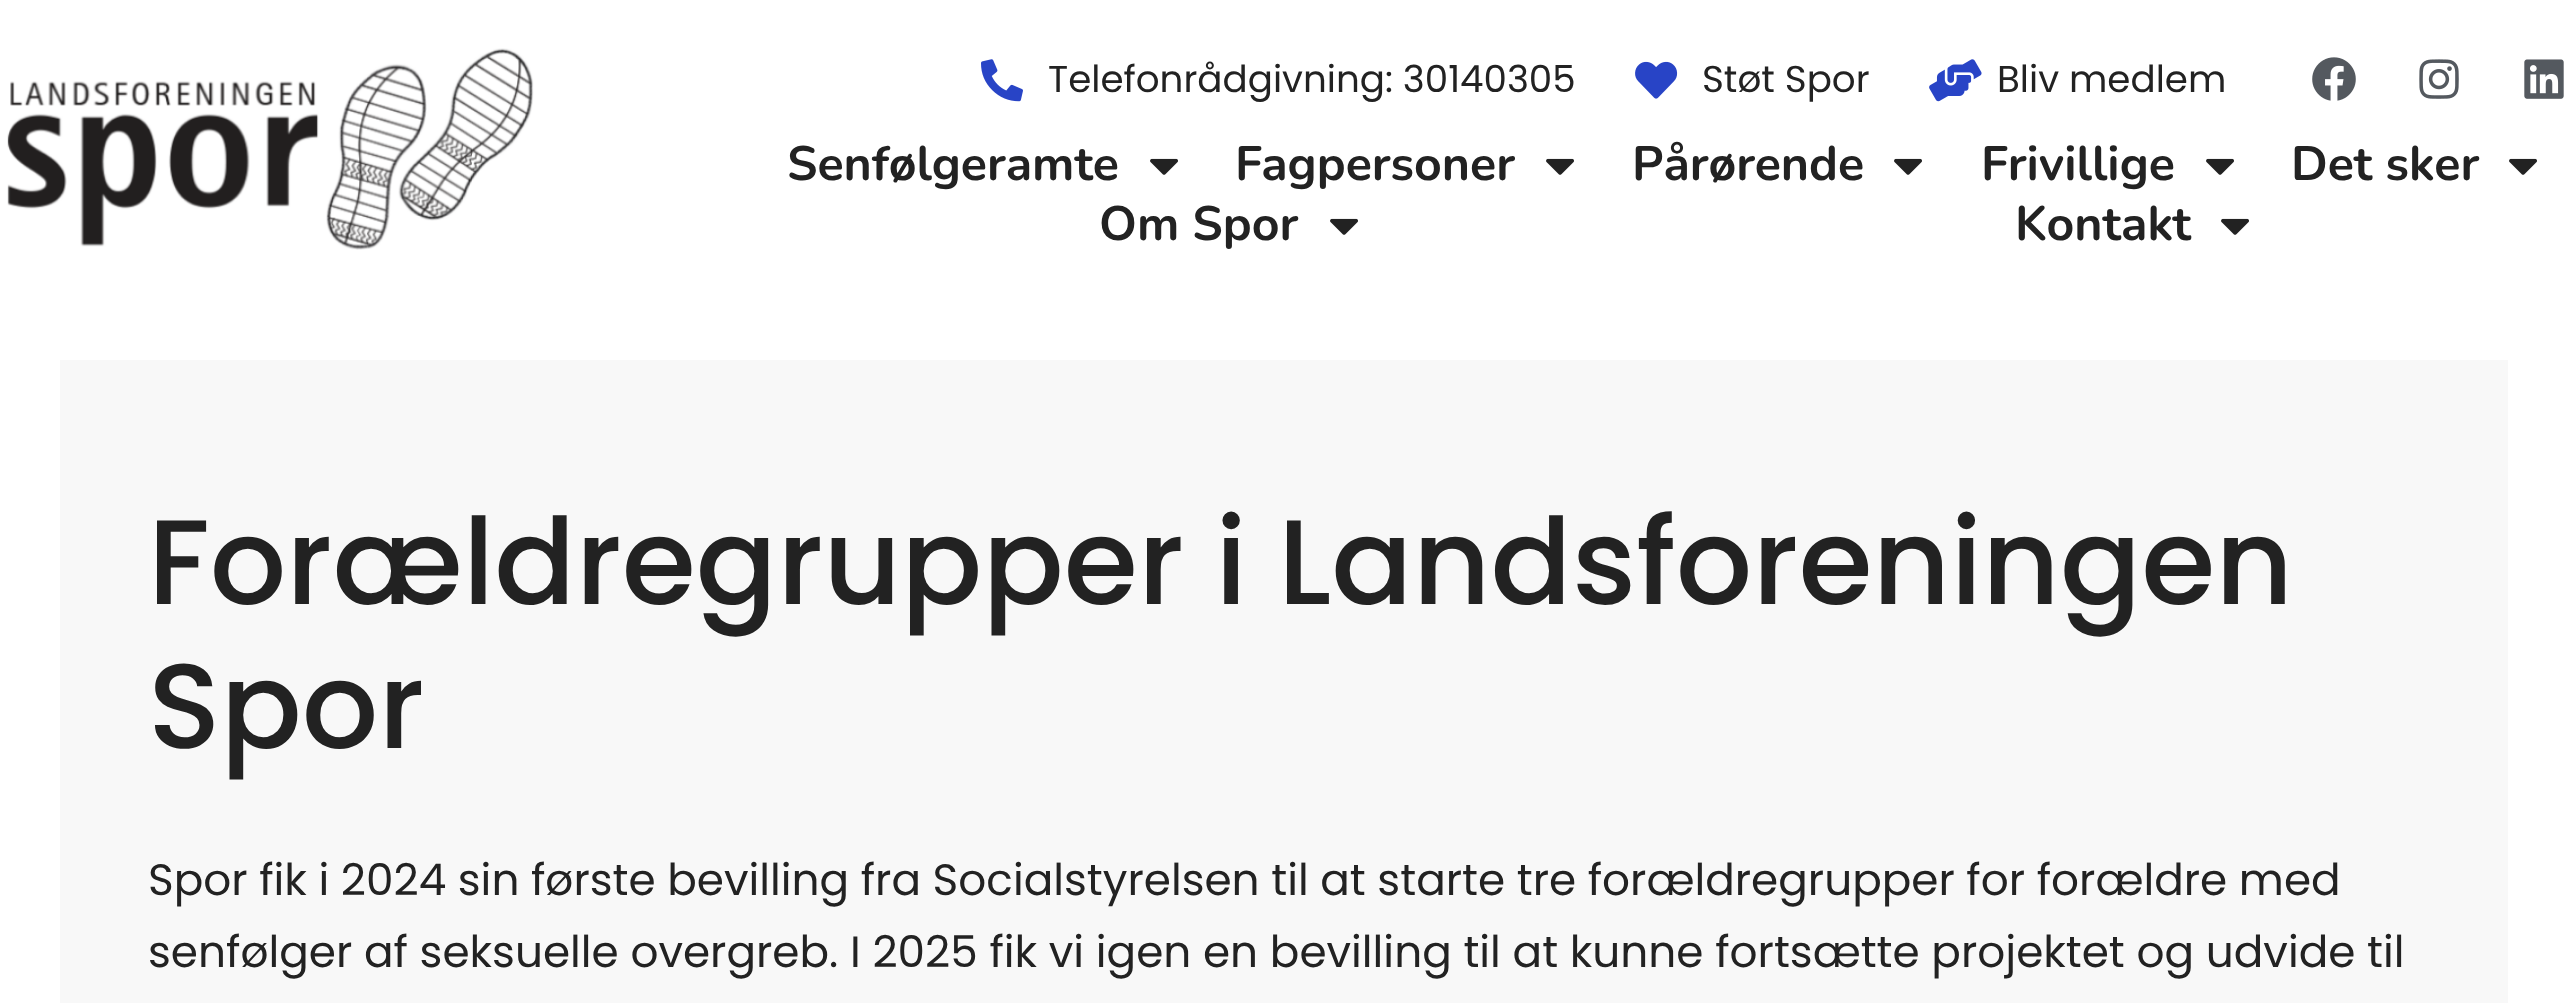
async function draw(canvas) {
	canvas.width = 2567;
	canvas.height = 1003;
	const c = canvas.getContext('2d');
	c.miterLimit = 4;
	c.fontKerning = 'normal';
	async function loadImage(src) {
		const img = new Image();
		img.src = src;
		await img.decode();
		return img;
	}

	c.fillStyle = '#fff';
	c.fillRect(0, 0, 2567, 1003);
	c.drawImage(await loadImage('img1.png'), 7, 48, 527, 202);
	c.drawImage(await loadImage('img2.png'), 981, 59, 42, 43);
	c.font = '37.25px Poppins';
	c.fillStyle = '#222';
	c.fillText('Telefonrådgivning: 30140305', 1048, 92);
	c.drawImage(await loadImage('img3.png'), 1635, 61, 43, 38);
	c.fillText('Støt Spor', 1702, 92);
	c.drawImage(await loadImage('img4.png'), 1929, 59, 53, 43);
	c.fillText('Bliv medlem', 1997, 92);
	c.drawImage(await loadImage('img5.png'), 2312, 57, 44, 44);
	c.drawImage(await loadImage('img6.png'), 2419, 59, 40, 40);
	c.drawImage(await loadImage('img7.png'), 2524, 59, 40, 40);
	c.font = 'bold 48.25px Nunito';
	c.fillText('Senfølgeramte', 787, 180);
	c.drawImage(await loadImage('img8.png'), 1150, 158, 28, 17);
	c.fillText('Fagpersoner', 1235, 180);
	c.drawImage(await loadImage('img8.png'), 1546, 158, 28, 17);
	c.fillText('Pårørende', 1632, 180);
	c.drawImage(await loadImage('img8.png'), 1894, 158, 28, 17);
	c.fillText('Frivillige', 1981, 180);
	c.drawImage(await loadImage('img8.png'), 2206, 158, 28, 17);
	c.fillText('Det sker', 2291, 180);
	c.drawImage(await loadImage('img8.png'), 2509, 158, 28, 17);
	c.fillText('Om Spor', 1099, 240);
	c.drawImage(await loadImage('img8.png'), 1330, 218, 28, 17);
	c.fillText('Kontakt', 2015, 240);
	c.drawImage(await loadImage('img8.png'), 2221, 218, 28, 17);
	c.fillStyle = '#f8f8f8';
	c.fillRect(60, 360, 2448, 643);
	c.font = '500 120px Poppins';
	c.fillStyle = '#222';
	c.fillText('Forældregrupper i Landsforeningen', 148, 604);
	c.fillText('Spor', 148, 748);
	c.wordSpacing = '-0.1px';
	c.font = '43.78px Poppins';
	c.fillText('Spor fik i 2024 sin første bevilling fra Socialstyrelsen til at starte tre forældregrupper for forældre med', 148, 895);
	c.wordSpacing = '0px';
	c.fillText('senfølger af seksuelle overgreb. I 2025 fik vi igen en bevilling til at kunne fortsætte projektet og udvide til', 148, 967);
}

draw(document.querySelector('canvas'));
